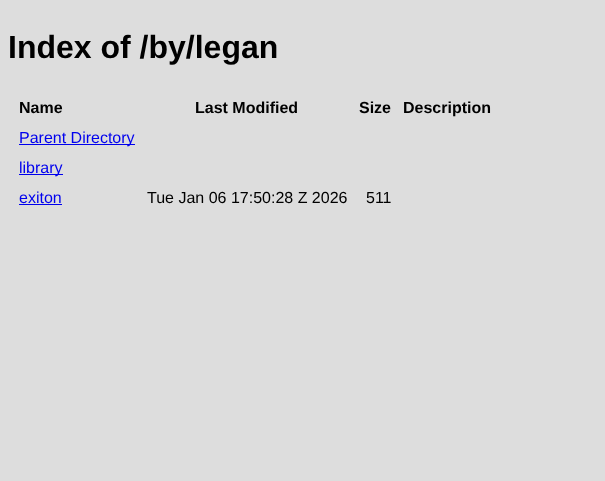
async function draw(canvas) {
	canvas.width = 605;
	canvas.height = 481;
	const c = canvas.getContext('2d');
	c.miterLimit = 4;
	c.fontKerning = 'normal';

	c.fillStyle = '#ddd';
	c.fillRect(0, 0, 605, 481);
	c.font = 'bold 32px Liberation Sans';
	c.fillStyle = '#000';
	c.fillText('Index of /by/legan', 8, 58);
	c.font = 'bold 16px Liberation Sans';
	for (const [text, x, y] of [
		['Name', 19, 113],
		['Last Modified', 195, 113],
		['Size', 359, 113],
		['Description', 403, 113],
	]) {
		c.fillText(text, x, y);
	}
	c.fillStyle = '#00e';
	c.fillRect(19, 144, 116, 1);
	c.font = '16px Liberation Sans';
	c.fillText('Parent Directory', 19, 143);
	c.fillRect(19, 174, 44, 1);
	c.fillText('library', 19, 173);
	c.fillText('exiton', 19, 203);
	c.fillRect(19, 204, 43, 1);
	c.fillStyle = '#000';
	c.fillText('Tue Jan 06 17:50:28 Z 2026', 147, 203);
	c.fillText('511', 366, 203);
}

draw(document.querySelector('canvas'));
